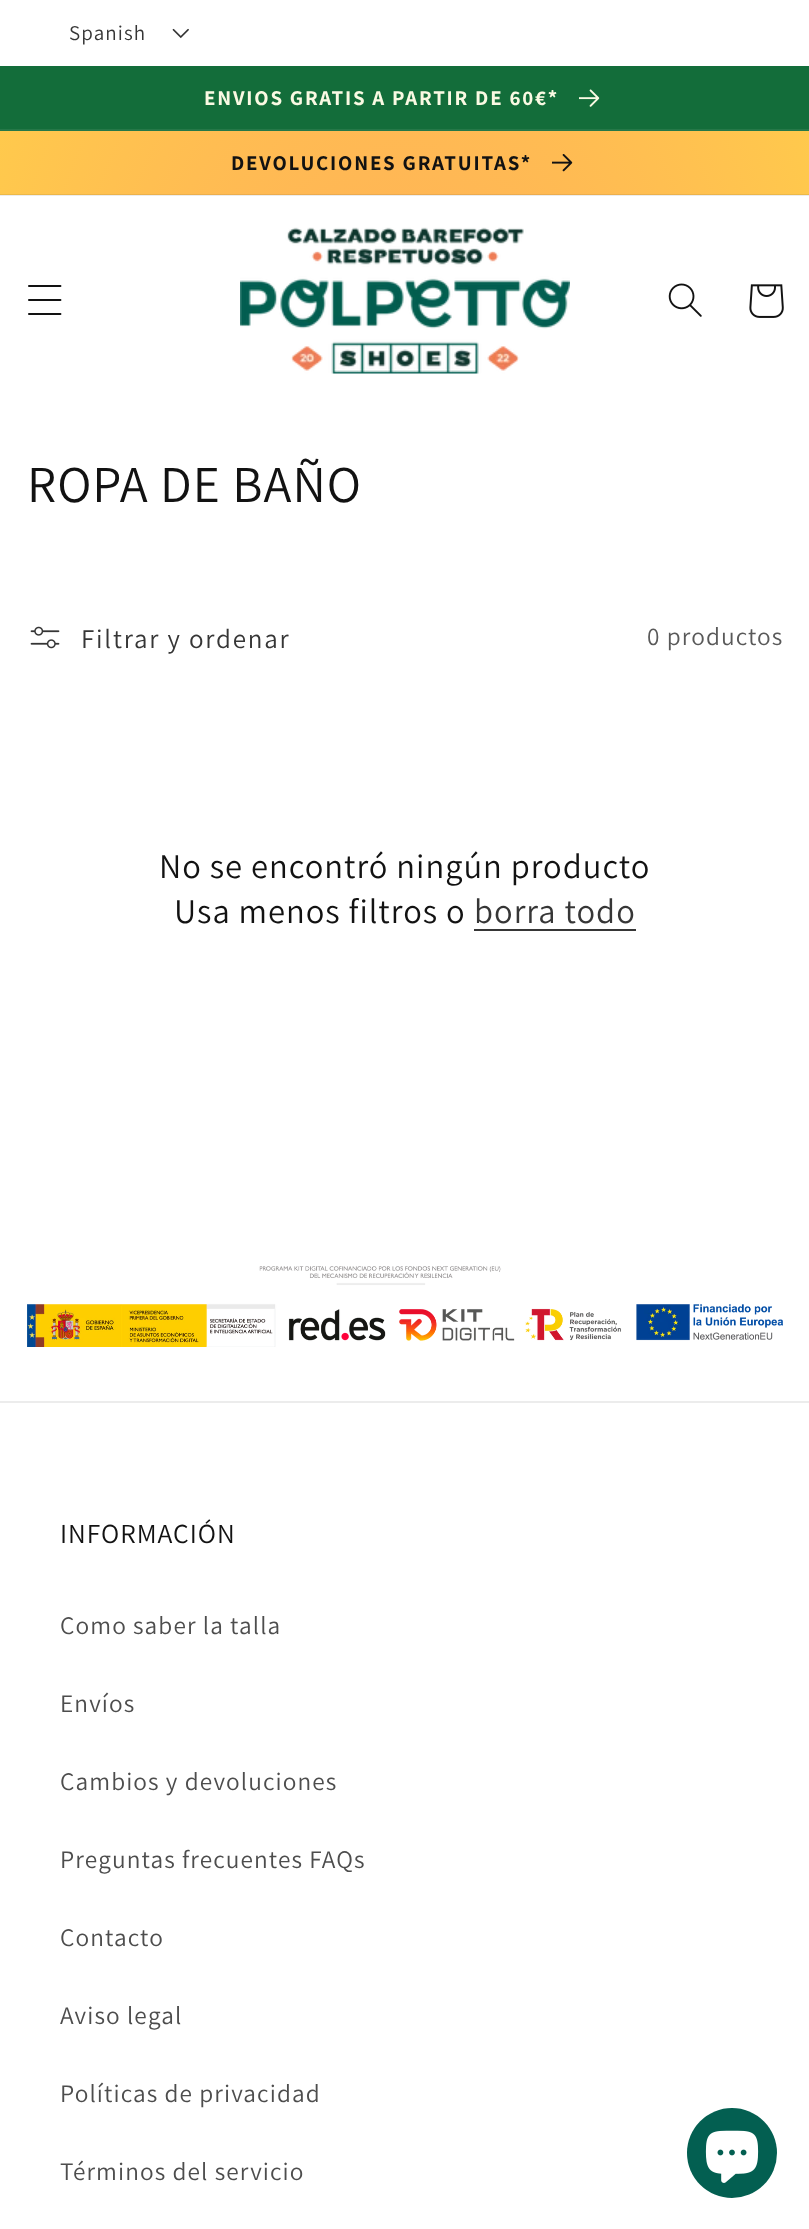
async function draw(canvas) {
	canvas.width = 809;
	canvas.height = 2229;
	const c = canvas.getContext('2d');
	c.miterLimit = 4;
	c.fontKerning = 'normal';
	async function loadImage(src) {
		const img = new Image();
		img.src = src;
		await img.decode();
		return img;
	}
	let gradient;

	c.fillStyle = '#fff';
	c.fillRect(0, 0, 809, 2229);
	c.fillStyle = '#ececec';
	c.fillRect(0, 195, 809, 1);
	c.letterSpacing = '1.1px';
	c.font = '21px Assistant';
	c.fillStyle = '#363636';
	c.fillText('Spanish', 69, 40);
	c.drawImage(await loadImage('img1.png'), 172, 28, 17, 11);
	c.fillStyle = '#136d3a';
	c.fillRect(0, 66, 809, 63);
	c.fillStyle = '#257848';
	c.fillRect(0, 129, 809, 2);
	c.letterSpacing = '1.8px';
	c.font = 'bold 21px Assistant';
	c.fillStyle = '#fafae3';
	c.fillText('ENVIOS GRATIS A PARTIR DE 60€*', 204, 105);
	c.drawImage(await loadImage('img2.png'), 579, 89, 21, 18);
	gradient = c.createRadialGradient(405, 405.39, 0, 405, 405.39, 573);
	gradient.addColorStop(0, '#ff9a62');
	gradient.addColorStop(1, '#ffcc4b');
	c.fillStyle = gradient;
	c.beginPath();
	c.rect(0, 131, 809, 63);
	c.save();
	c.clip();
	c.scale(1, 1576 / 573);
	c.fillRect(0, 0, 809, 811);
	c.restore();
	gradient = c.createRadialGradient(405, 405.39, 0, 405, 405.39, 573);
	gradient.addColorStop(0, '#ec8f5c');
	gradient.addColorStop(1, '#ecbd46');
	c.fillStyle = gradient;
	c.beginPath();
	c.rect(0, 194, 809, 1);
	c.save();
	c.clip();
	c.scale(1, 1576 / 573);
	c.fillRect(0, 0, 809, 811);
	c.restore();
	c.fillStyle = '#121212';
	c.fillText('DEVOLUCIONES GRATUITAS*', 231, 170);
	c.drawImage(await loadImage('img3.png'), 552, 154, 21, 18);
	c.drawImage(await loadImage('img4.png'), 28, 285, 34, 30);
	c.drawImage(await loadImage('img5.png'), 240, 227, 330, 147);
	c.drawImage(await loadImage('img6.png'), 668, 283, 34, 34);
	c.drawImage(await loadImage('img7.png'), 749, 284, 35, 34);
	c.letterSpacing = '1px';
	c.font = '51.75px Assistant';
	c.fillText('ROPA DE BAÑO', 27, 502);
	c.drawImage(await loadImage('img8.png'), 30, 626, 30, 23);
	c.letterSpacing = '1.8px';
	c.font = '27px Assistant';
	c.fillStyle = '#363636';
	c.fillText('Filtrar y ordenar', 81, 648);
	c.letterSpacing = '1.1px';
	c.font = '25.25px Assistant';
	c.fillStyle = '#595959';
	c.fillText('0 productos', 647, 645);
	c.letterSpacing = '1px';
	c.font = '34.5px Assistant';
	c.fillStyle = '#121212';
	c.fillText('No se encontró ningún producto', 159, 878);
	c.fillText('Usa menos filtros o', 174, 923);
	c.fillStyle = '#363636';
	c.fillText('borra todo', 474, 923);
	c.fillRect(474, 929, 162, 2);
	c.drawImage(await loadImage('img9.png'), 27, 1266, 756, 81);
	c.fillStyle = '#ececec';
	c.fillRect(0, 1401, 809, 2);
	c.font = '27.5px Assistant';
	c.fillStyle = '#121212';
	c.fillText('INFORMACIÓN', 60, 1543);
	c.letterSpacing = '1.1px';
	c.font = '25.25px Assistant';
	c.fillStyle = '#4d4d4d';
	for (const [text, x, y] of [
		['Como saber la talla', 60, 1634],
		['Envíos', 60, 1712],
		['Cambios y devoluciones', 60, 1790],
		['Preguntas frecuentes FAQs', 60, 1868],
		['Contacto', 60, 1946],
		['Aviso legal', 60, 2024],
		['Políticas de privacidad', 60, 2102],
		['Términos del servicio', 60, 2180],
	]) {
		c.fillText(text, x, y);
	}
	c.fillStyle = '#035f51';
	c.beginPath();
	c.arc(732, 2153, 45, 0, 2 * Math.PI);
	c.fill();
	c.drawImage(await loadImage('img10.png'), 705, 2130, 54, 53);
}

draw(document.querySelector('canvas'));
